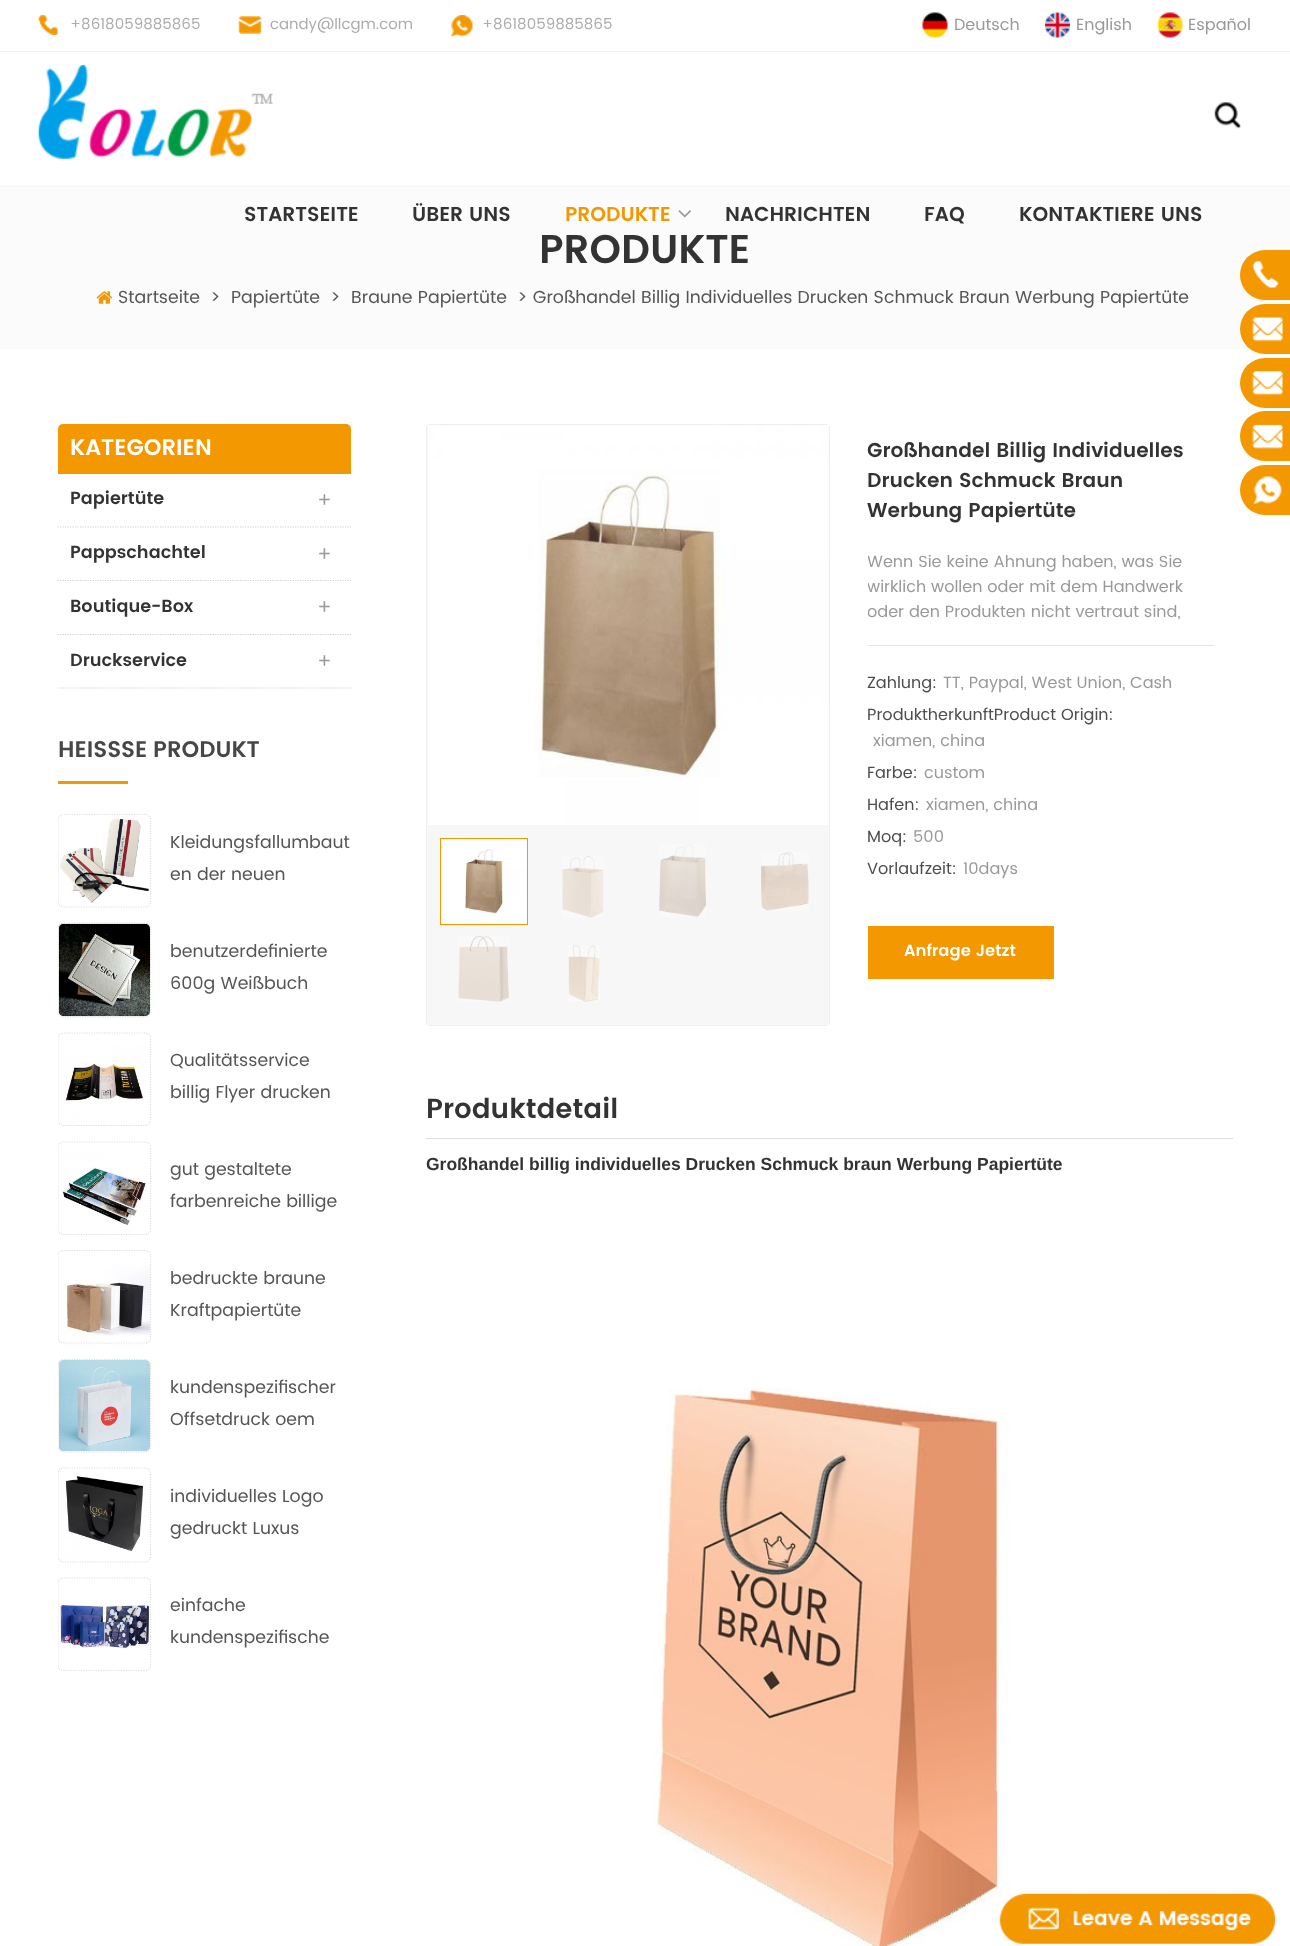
async function draw(canvas) {
	canvas.width = 1290;
	canvas.height = 1946;
	const c = canvas.getContext('2d');
	c.miterLimit = 4;
	c.fontKerning = 'normal';
	async function loadImage(src) {
		const img = new Image();
		img.src = src;
		await img.decode();
		return img;
	}

	c.fillStyle = '#fff';
	c.fillRect(0, 0, 1290, 1946);
	c.fillStyle = '#f1f1f1';
	c.fillRect(0, 51, 1290, 1);
	c.drawImage(await loadImage('img1.png'), 38, 15, 20, 20);
	c.font = '15px Poppins';
	c.fillStyle = '#acacac';
	c.fillText('+8618059885865', 70, 29);
	c.drawImage(await loadImage('img2.png'), 238, 16, 24, 18);
	c.fillText('candy@llcgm.com', 270, 29);
	c.drawImage(await loadImage('img3.png'), 451, 15, 22, 22);
	c.fillText('+8618059885865', 482, 29);
	c.drawImage(await loadImage('img4.png'), 922, 12, 26, 26);
	c.font = '16.25px Poppins';
	c.fillStyle = '#999';
	c.fillText('Deutsch', 954, 30);
	c.drawImage(await loadImage('img5.png'), 1045, 12, 25, 26);
	c.fillText('English', 1076, 30);
	c.drawImage(await loadImage('img6.png'), 1157, 12, 26, 26);
	c.fillText('Español', 1188, 30);
	c.drawImage(await loadImage('img7.png'), 38, 64, 235, 95);
	c.drawImage(await loadImage('img8.png'), 1214, 102, 27, 27);
	c.fillStyle = '#fbfbfb';
	c.fillRect(0, 185, 1290, 164);
	c.font = '600 20px Poppins';
	c.fillStyle = '#333';
	c.fillText('STARTSEITE', 244, 221);
	c.fillText('ÜBER UNS', 412, 221);
	c.fillStyle = '#f39800';
	c.fillText('PRODUKTE', 565, 221);
	c.drawImage(await loadImage('img9.png'), 678, 210, 13, 8);
	c.fillStyle = '#333';
	for (const [text, x, y] of [
		['NACHRICHTEN', 725, 221],
		['FAQ', 924, 221],
		['KONTAKTIERE UNS', 1019, 221],
	]) {
		c.fillText(text, x, y);
	}
	c.font = '600 40px Poppins';
	c.fillText('PRODUKTE', 539, 263);
	c.drawImage(await loadImage('img10.png'), 96, 291, 17, 13);
	c.font = '17.5px Poppins';
	c.fillStyle = '#555';
	for (const [text, x, y] of [
		['Startseite', 118, 303],
		['>', 210, 303],
		['Papiertüte', 231, 303],
		['>', 330, 303],
		['Braune Papiertüte', 351, 303],
		['> Großhandel Billig Individuelles Drucken Schmuck Braun Werbung Papiertüte', 517, 303],
	]) {
		c.fillText(text, x, y);
	}
	c.fillStyle = '#f39800';
	c.beginPath();
	c.roundRect(1240, 250, 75, 50, 25);
	c.fill();
	c.drawImage(await loadImage('img11.png'), 1252, 261, 27, 27);
	c.beginPath();
	c.roundRect(1240, 304, 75, 50, 25);
	c.fill();
	c.drawImage(await loadImage('img12.png'), 1252, 317, 31, 25);
	c.beginPath();
	c.roundRect(1240, 358, 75, 50, 25);
	c.fill();
	c.drawImage(await loadImage('img13.png'), 1252, 371, 31, 25);
	c.beginPath();
	c.roundRect(1240, 411, 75, 50, 25);
	c.fill();
	c.drawImage(await loadImage('img14.png'), 1252, 424, 31, 25);
	c.beginPath();
	c.roundRect(1240, 465, 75, 50, 25);
	c.fill();
	c.drawImage(await loadImage('img15.png'), 1253, 476, 29, 28);
	c.beginPath();
	c.roundRect(58, 424, 293, 50, [5, 5, 0, 0]);
	c.fill();
	c.font = '600 22.5px Poppins';
	c.fillStyle = '#fff';
	c.fillText('KATEGORIEN', 70, 455);
	c.beginPath();
	c.moveTo(57.5, 527);
	c.lineTo(351, 527);
	c.strokeStyle = '#d0d0d0';
	c.lineWidth = 1.2;
	c.setLineDash([1.25, 1.25]);
	c.stroke();
	c.font = '600 17.5px Poppins';
	c.fillStyle = '#333';
	c.fillText('Papiertüte', 70, 504);
	c.font = 'bold 22.5px Liberation Serif';
	c.fillStyle = '#999';
	c.fillText('+', 318, 507);
	c.beginPath();
	c.moveTo(57.5, 580.5);
	c.lineTo(351, 580.5);
	c.stroke();
	c.font = '600 17.5px Poppins';
	c.fillStyle = '#333';
	c.fillText('Pappschachtel', 70, 558);
	c.font = 'bold 22.5px Liberation Serif';
	c.fillStyle = '#999';
	c.fillText('+', 318, 561);
	c.beginPath();
	c.moveTo(57.5, 634.5);
	c.lineTo(351, 634.5);
	c.stroke();
	c.font = '600 17.5px Poppins';
	c.fillStyle = '#333';
	c.fillText('Boutique-Box', 70, 612);
	c.font = 'bold 22.5px Liberation Serif';
	c.fillStyle = '#999';
	c.fillText('+', 318, 614);
	c.beginPath();
	c.moveTo(57.5, 688);
	c.lineTo(351, 688);
	c.stroke();
	c.font = '600 17.5px Poppins';
	c.fillStyle = '#333';
	c.fillText('Druckservice', 70, 666);
	c.font = 'bold 22.5px Liberation Serif';
	c.fillStyle = '#999';
	c.fillText('+', 318, 668);
	c.font = '600 22.5px Poppins';
	c.fillStyle = '#474747';
	c.fillText('HEISS', 58, 757);
	c.wordSpacing = '-1px';
	c.fillText('SE PRODUKT', 121, 757);
	c.fillStyle = '#f39800';
	c.fillRect(58, 781, 70, 3);
	c.save();
	c.beginPath();
	c.rect(58, 739, 293, 940);
	c.clip();
	c.beginPath();
	c.moveTo(64, 814.5);
	c.lineTo(145, 814.5);
	c.bezierCurveTo(148, 814.5, 150.5, 817, 150.5, 820);
	c.lineTo(150.5, 901);
	c.bezierCurveTo(150.5, 904.5, 148, 907, 145, 907);
	c.lineTo(64, 907);
	c.bezierCurveTo(60.5, 907, 58, 904.5, 58, 901);
	c.lineTo(58, 820);
	c.bezierCurveTo(58, 817, 60.5, 814.5, 64, 814.5);
	c.closePath();
	c.strokeStyle = '#ddd';
	c.stroke();
	c.restore();
	c.drawImage(await loadImage('img16.png'), 60, 818, 89, 85);
	c.wordSpacing = '0px';
	c.font = '17.5px Poppins';
	c.fillStyle = '#555';
	c.fillText('Kleidungsfallumbaut', 170, 848);
	c.fillText('en der neuen', 170, 880);
	c.save();
	c.beginPath();
	c.rect(58, 739, 293, 940);
	c.clip();
	c.beginPath();
	c.moveTo(64, 923);
	c.lineTo(145, 923);
	c.bezierCurveTo(148, 923, 150.5, 925.5, 150.5, 929);
	c.lineTo(150.5, 1011);
	c.bezierCurveTo(150.5, 1014.5, 148, 1017, 145, 1017);
	c.lineTo(64, 1017);
	c.bezierCurveTo(60.5, 1017, 58, 1014.5, 58, 1011);
	c.lineTo(58, 929);
	c.bezierCurveTo(58, 925.5, 60.5, 923, 64, 923);
	c.closePath();
	c.strokeStyle = '#ddd';
	c.stroke();
	c.restore();
	c.drawImage(await loadImage('img17.png'), 58, 923, 92, 94);
	c.fillText('benutzerdefinierte', 170, 957);
	c.fillText('600g Weißbuch', 170, 989);
	c.save();
	c.beginPath();
	c.rect(58, 739, 293, 940);
	c.clip();
	c.beginPath();
	c.moveTo(64, 1033);
	c.lineTo(145, 1033);
	c.bezierCurveTo(148, 1033, 150.5, 1035.5, 150.5, 1039);
	c.lineTo(150.5, 1120);
	c.bezierCurveTo(150.5, 1123, 148, 1125.5, 145, 1125.5);
	c.lineTo(64, 1125.5);
	c.bezierCurveTo(60.5, 1125.5, 58, 1123, 58, 1120);
	c.lineTo(58, 1039);
	c.bezierCurveTo(58, 1035.5, 60.5, 1033, 64, 1033);
	c.closePath();
	c.strokeStyle = '#ddd';
	c.stroke();
	c.restore();
	c.drawImage(await loadImage('img18.png'), 61, 1035, 89, 90);
	c.fillText('Qualitätsservice', 170, 1066);
	c.fillText('billig Flyer drucken', 170, 1098);
	c.save();
	c.beginPath();
	c.rect(58, 739, 293, 940);
	c.clip();
	c.beginPath();
	c.moveTo(64, 1142);
	c.lineTo(145, 1142);
	c.bezierCurveTo(148, 1142, 150.5, 1144.5, 150.5, 1147.5);
	c.lineTo(150.5, 1229);
	c.bezierCurveTo(150.5, 1232, 148, 1234.5, 145, 1234.5);
	c.lineTo(64, 1234.5);
	c.bezierCurveTo(60.5, 1234.5, 58, 1232, 58, 1229);
	c.lineTo(58, 1147.5);
	c.bezierCurveTo(58, 1144.5, 60.5, 1142, 64, 1142);
	c.closePath();
	c.strokeStyle = '#ddd';
	c.stroke();
	c.restore();
	c.drawImage(await loadImage('img19.png'), 62, 1142, 88, 91);
	c.fillText('gut gestaltete', 170, 1175);
	c.fillText('farbenreiche billige', 170, 1207);
	c.save();
	c.beginPath();
	c.rect(58, 739, 293, 940);
	c.clip();
	c.beginPath();
	c.moveTo(64, 1250.5);
	c.lineTo(145, 1250.5);
	c.bezierCurveTo(148, 1250.5, 150.5, 1253, 150.5, 1256);
	c.lineTo(150.5, 1337.5);
	c.bezierCurveTo(150.5, 1340.5, 148, 1343, 145, 1343);
	c.lineTo(64, 1343);
	c.bezierCurveTo(60.5, 1343, 58, 1340.5, 58, 1337.5);
	c.lineTo(58, 1256);
	c.bezierCurveTo(58, 1253, 60.5, 1250.5, 64, 1250.5);
	c.closePath();
	c.strokeStyle = '#ddd';
	c.stroke();
	c.restore();
	c.drawImage(await loadImage('img20.png'), 64, 1252, 86, 91);
	c.fillText('bedruckte braune', 170, 1284);
	c.fillText('Kraftpapiertüte', 170, 1316);
	c.save();
	c.beginPath();
	c.rect(58, 739, 293, 940);
	c.clip();
	c.beginPath();
	c.moveTo(64, 1359.5);
	c.lineTo(145, 1359.5);
	c.bezierCurveTo(148, 1359.5, 150.5, 1362, 150.5, 1365);
	c.lineTo(150.5, 1446);
	c.bezierCurveTo(150.5, 1449.5, 148, 1452, 145, 1452);
	c.lineTo(64, 1452);
	c.bezierCurveTo(60.5, 1452, 58, 1449.5, 58, 1446);
	c.lineTo(58, 1365);
	c.bezierCurveTo(58, 1362, 60.5, 1359.5, 64, 1359.5);
	c.closePath();
	c.strokeStyle = '#ddd';
	c.stroke();
	c.restore();
	c.drawImage(await loadImage('img21.png'), 58, 1360, 92, 92);
	c.fillText('kundenspezifischer', 170, 1393);
	c.fillText('Offsetdruck oem', 170, 1425);
	c.save();
	c.beginPath();
	c.rect(58, 739, 293, 940);
	c.clip();
	c.beginPath();
	c.moveTo(64, 1468);
	c.lineTo(145, 1468);
	c.bezierCurveTo(148, 1468, 150.5, 1470.5, 150.5, 1474);
	c.lineTo(150.5, 1556);
	c.bezierCurveTo(150.5, 1559.5, 148, 1562, 145, 1562);
	c.lineTo(64, 1562);
	c.bezierCurveTo(60.5, 1562, 58, 1559.5, 58, 1556);
	c.lineTo(58, 1474);
	c.bezierCurveTo(58, 1470.5, 60.5, 1468, 64, 1468);
	c.closePath();
	c.strokeStyle = '#ddd';
	c.stroke();
	c.restore();
	c.drawImage(await loadImage('img22.png'), 65, 1470, 85, 91);
	c.fillText('individuelles Logo', 170, 1502);
	c.fillText('gedruckt Luxus', 170, 1534);
	c.save();
	c.beginPath();
	c.rect(58, 739, 293, 940);
	c.clip();
	c.beginPath();
	c.moveTo(64, 1578);
	c.lineTo(145, 1578);
	c.bezierCurveTo(148, 1578, 150.5, 1580.5, 150.5, 1584);
	c.lineTo(150.5, 1665);
	c.bezierCurveTo(150.5, 1668, 148, 1670.5, 145, 1670.5);
	c.lineTo(64, 1670.5);
	c.bezierCurveTo(60.5, 1670.5, 58, 1668, 58, 1665);
	c.lineTo(58, 1584);
	c.bezierCurveTo(58, 1580.5, 60.5, 1578, 64, 1578);
	c.closePath();
	c.strokeStyle = '#ddd';
	c.stroke();
	c.restore();
	c.drawImage(await loadImage('img23.png'), 59, 1580, 91, 90);
	c.fillText('einfache', 170, 1611);
	c.fillText('kundenspezifische', 170, 1643);
	c.fillStyle = '#f7f7f7';
	c.beginPath();
	c.roundRect(426.5, 424.5, 403, 601, 3.5);
	c.fill();
	c.strokeStyle = '#eee';
	c.lineWidth = 1;
	c.setLineDash([]);
	c.stroke();
	c.drawImage(await loadImage('img24.png'), 427, 425, 402, 400);
	c.fillRect(428, 1023, 401, 2);
	c.drawImage(await loadImage('img25.png'), 440, 837, 88, 87);
	c.strokeStyle = '#f39800';
	c.strokeRect(440.5, 838.5, 87, 86);
	c.drawImage(await loadImage('img26.png'), 562, 856, 42, 62);
	c.drawImage(await loadImage('img27.png'), 659, 844, 47, 73);
	c.drawImage(await loadImage('img28.png'), 761, 852, 48, 59);
	c.drawImage(await loadImage('img29.png'), 458, 936, 51, 66);
	c.drawImage(await loadImage('img30.png'), 568, 945, 32, 57);
	c.font = '600 20px Poppins';
	c.fillStyle = '#333';
	for (const [text, x, y] of [
		['Großhandel Billig Individuelles', 867, 457],
		['Drucken Schmuck Braun', 867, 487],
		['Werbung Papiertüte', 867, 517],
	]) {
		c.fillText(text, x, y);
	}
	c.save();
	c.beginPath();
	c.rect(868, 551, 346, 75);
	c.clip();
	c.font = '16.25px Poppins';
	c.fillStyle = '#999';
	for (const [text, x, y] of [
		['Wenn Sie keine Ahnung haben, was Sie', 867, 567],
		['wirklich wollen oder mit dem Handwerk', 867, 592],
		['oder den Produkten nicht vertraut sind,', 867, 617],
	]) {
		c.fillText(text, x, y);
	}
	c.restore();
	c.fillStyle = '#e5e5e5';
	c.fillRect(868, 645, 346, 1);
	c.font = '16.25px Poppins';
	c.fillStyle = '#4d4d4d';
	c.fillText('Zahlung:', 867, 688);
	c.fillStyle = '#999';
	c.fillText('TT, Paypal, West Union, Cash', 943, 688);
	c.fillStyle = '#4d4d4d';
	c.fillText('ProduktherkunftProduct Origin:', 867, 720);
	c.fillStyle = '#999';
	c.fillText('xiamen, china', 873, 746);
	c.fillStyle = '#4d4d4d';
	c.fillText('Farbe:', 867, 778);
	c.fillStyle = '#999';
	c.fillText('custom', 924, 778);
	c.fillStyle = '#4d4d4d';
	c.fillText('Hafen:', 867, 810);
	c.fillStyle = '#999';
	c.fillText('xiamen, china', 926, 810);
	c.fillStyle = '#4d4d4d';
	c.fillText('Moq:', 867, 842);
	c.fillStyle = '#999';
	c.fillText('500', 913, 842);
	c.fillStyle = '#4d4d4d';
	c.fillText('Vorlaufzeit:', 867, 874);
	c.fillStyle = '#999';
	c.fillText('10days', 963, 874);
	c.fillStyle = '#f39800';
	c.fillRect(868, 926, 186, 53);
	c.font = '600 16.25px Poppins';
	c.fillStyle = '#fff';
	c.fillText('Anfrage Jetzt', 904, 956);
	c.font = '600 27.5px Poppins';
	c.fillStyle = '#333';
	c.fillText('Produktdetail', 426, 1118);
	c.fillStyle = '#ddd';
	c.fillRect(426, 1138, 807, 1);
	c.font = 'bold 17.5px Liberation Sans';
	c.fillStyle = '#333';
	c.fillText('Großhandel billig individuelles Drucken Schmuck braun Werbung Papiertüte', 426, 1170);
	c.drawImage(await loadImage('img31.png'), 653, 1387, 358, 559);
	c.drawImage(await loadImage('img32.png'), 999, 1893, 277, 51);
}

draw(document.querySelector('canvas'));
